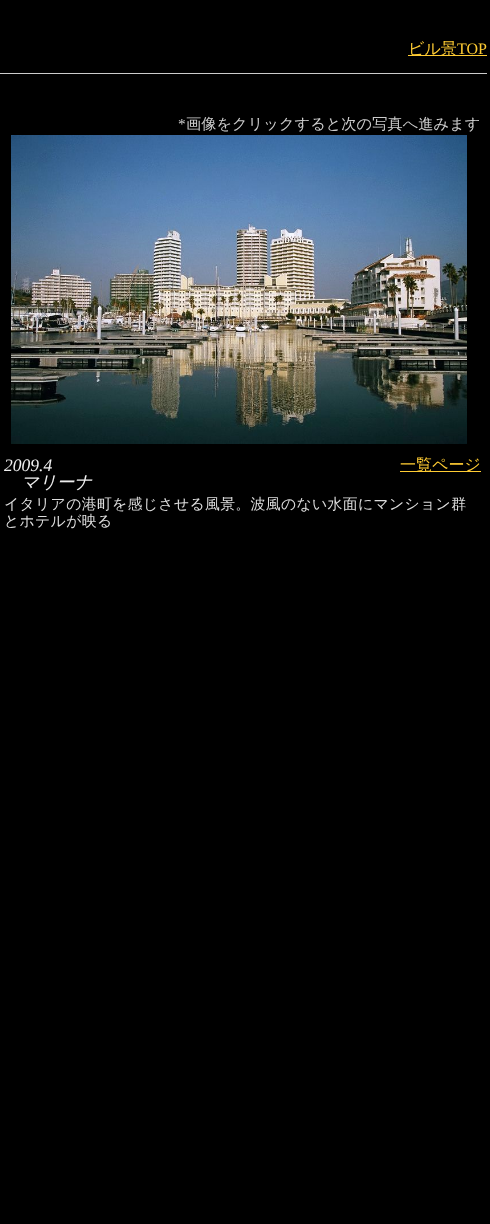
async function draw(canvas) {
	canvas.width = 490;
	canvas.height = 1224;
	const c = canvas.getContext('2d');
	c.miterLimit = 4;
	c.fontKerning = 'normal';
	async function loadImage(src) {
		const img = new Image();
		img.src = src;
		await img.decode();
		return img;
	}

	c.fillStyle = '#000';
	c.fillRect(0, 0, 490, 1224);
	c.fillStyle = '#fc3';
	c.fillRect(408, 55, 79, 1);
	c.font = '500 16px WenQuanYi Zen Hei';
	c.fillText('ビル景', 408, 54);
	c.font = '16px Liberation Serif';
	c.fillText('TOP', 457, 54);
	c.fillStyle = '#ccc';
	c.fillRect(0, 73, 487, 1);
	c.font = '15.25px Liberation Serif';
	c.fillText('*', 178, 129);
	c.font = '500 15.25px WenQuanYi Zen Hei';
	c.fillText('画像をクリックすると次の写真へ進みます', 186, 129);
	c.drawImage(await loadImage('img1.png'), 11, 135, 456, 309);
	c.font = 'italic 17.5px Liberation Serif';
	c.fillStyle = '#eee';
	c.fillText('2009.4', 4, 471);
	c.fillStyle = '#fc3';
	c.fillRect(400, 471, 81, 1);
	c.font = '500 16px WenQuanYi Zen Hei';
	c.fillText('一覧ページ', 400, 470);
	c.font = 'italic 500 17.5px WenQuanYi Zen Hei';
	c.fillStyle = '#eee';
	c.fillText('マリーナ', 21, 488);
	c.letterSpacing = '0.3px';
	c.font = '500 14.9px WenQuanYi Zen Hei';
	c.fillStyle = '#ddd';
	c.fillText('イタリアの港町を感じさせる風景。波風のない水面にマンション群', 4, 509);
	c.fillText('とホテルが映る', 4, 526);
}

draw(document.querySelector('canvas'));
